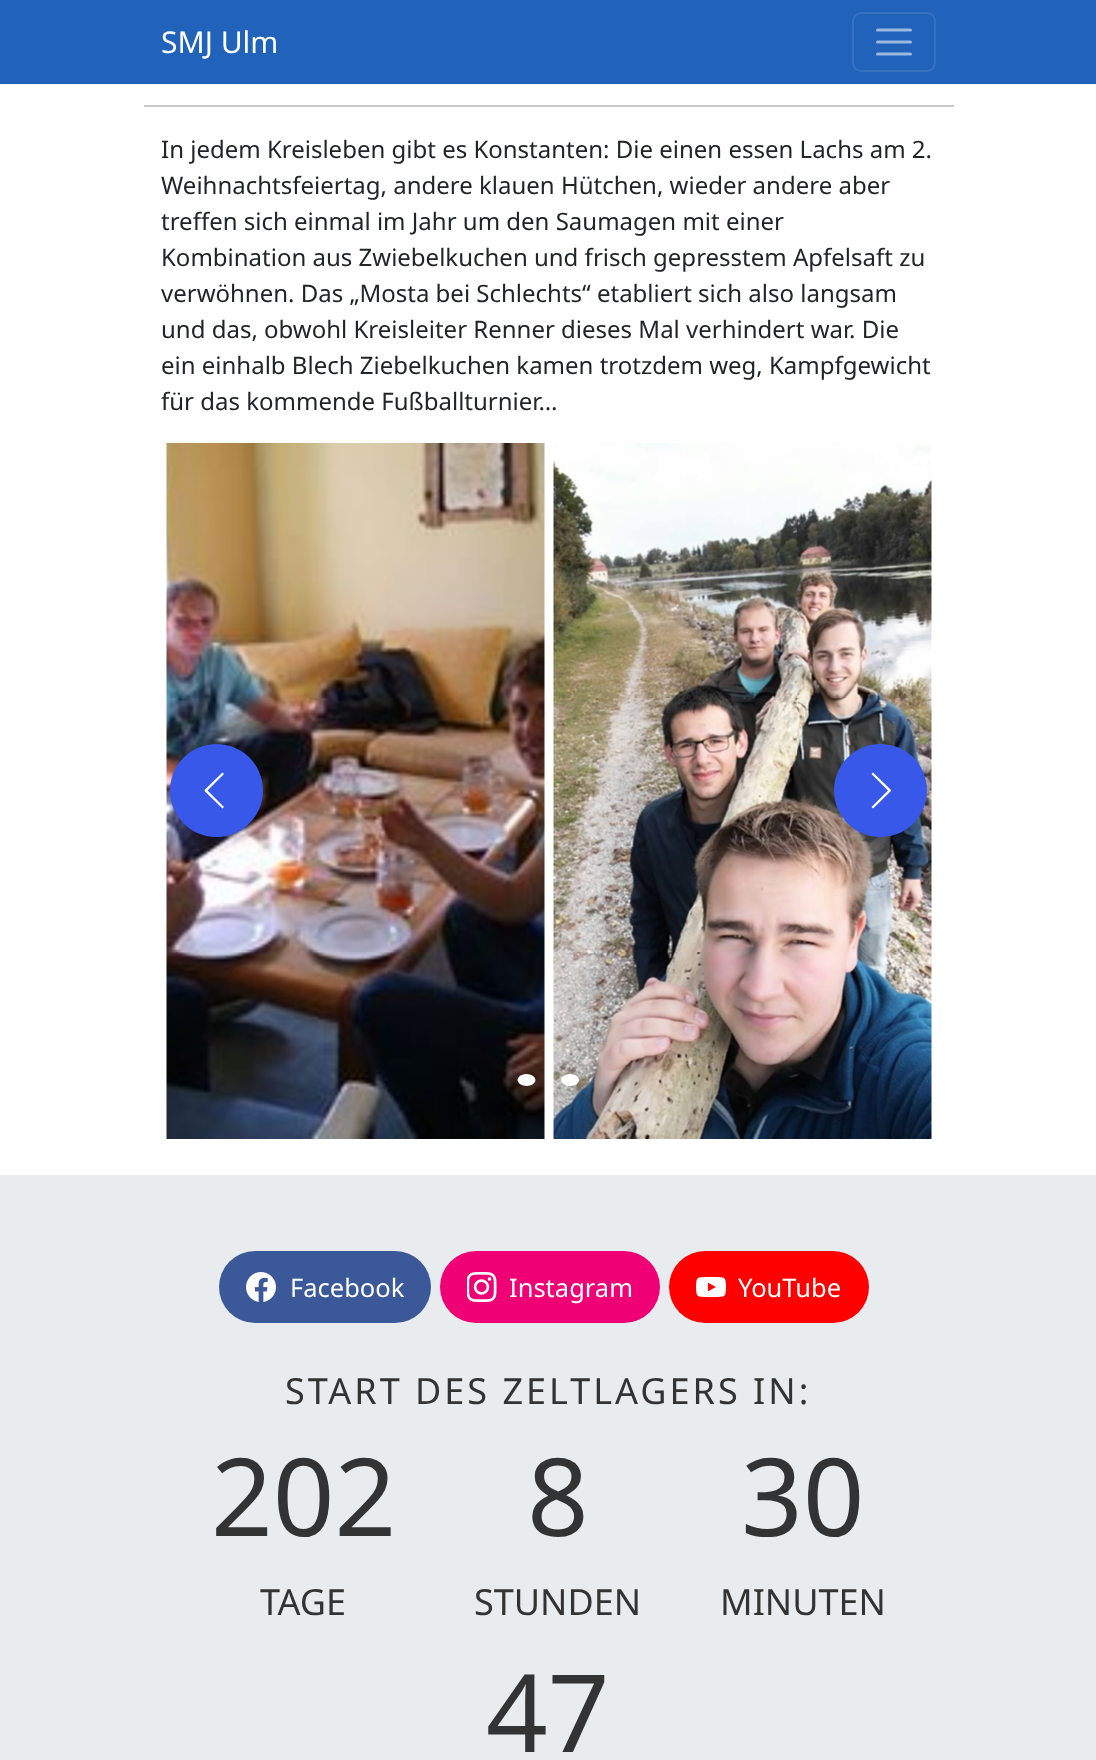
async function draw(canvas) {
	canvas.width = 1096;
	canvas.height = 1760;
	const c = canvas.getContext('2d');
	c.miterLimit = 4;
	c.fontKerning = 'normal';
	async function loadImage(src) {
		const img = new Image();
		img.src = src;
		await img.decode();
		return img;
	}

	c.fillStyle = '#fff';
	c.fillRect(0, 0, 1096, 1760);
	c.fillStyle = '#2162ba';
	c.fillRect(0, 0, 1096, 84);
	c.font = '30px Noto Sans';
	c.fillStyle = '#fff';
	c.fillText('SMJ Ulm', 161, 53);
	c.beginPath();
	c.roundRect(853, 13, 82, 58, 8);
	c.strokeStyle = '#3772c1';
	c.lineWidth = 2;
	c.stroke();
	c.beginPath();
	c.moveTo(877.5, 30);
	c.lineTo(910.5, 30);
	c.moveTo(877.5, 42);
	c.lineTo(910.5, 42);
	c.moveTo(877.5, 54);
	c.lineTo(910.5, 54);
	c.strokeStyle = '#9bb8e0';
	c.lineWidth = 3;
	c.lineCap = 'round';
	c.stroke();
	c.fillStyle = '#c8c9ca';
	c.fillRect(144, 105, 810, 2);
	c.font = '24px Noto Sans';
	c.fillStyle = '#212529';
	for (const [text, x, y] of [
		['In jedem Kreisleben gibt es Konstanten: Die einen essen Lachs am 2.', 161, 158],
		['Weihnachtsfeiertag, andere klauen Hütchen, wieder andere aber', 161, 194],
		['treffen sich einmal im Jahr um den Saumagen mit einer', 161, 230],
		['Kombination aus Zwiebelkuchen und frisch gepresstem Apfelsaft zu', 161, 266],
		['verwöhnen. Das „Mosta bei Schlechts“ etabliert sich also langsam', 161, 302],
		['und das, obwohl Kreisleiter Renner dieses Mal verhindert war. Die', 161, 338],
		['ein einhalb Blech Ziebelkuchen kamen trotzdem weg, Kampfgewicht', 161, 374],
		['für das kommende Fußballturnier…', 161, 410],
	]) {
		c.fillText(text, x, y);
	}
	c.drawImage(await loadImage('img1.png'), 166, 443, 379, 696);
	c.drawImage(await loadImage('img2.png'), 553, 443, 379, 696);
	c.fillStyle = '#3858e9';
	c.beginPath();
	c.arc(216.5, 790.5, 46.5, 0, 2 * Math.PI);
	c.fill();
	c.fillStyle = '#fff';
	c.beginPath();
	c.moveTo(222.5, 772.5);
	c.lineTo(224, 774);
	c.lineTo(207.5, 790.5);
	c.lineTo(224, 807);
	c.lineTo(222.5, 808.5);
	c.lineTo(205, 791.5);
	c.bezierCurveTo(204.5, 791, 204.5, 790, 205, 789.5);
	c.closePath();
	c.fill('evenodd');
	c.fillStyle = '#3858e9';
	c.beginPath();
	c.arc(880.5, 790.5, 46.5, 0, 2 * Math.PI);
	c.fill();
	c.fillStyle = '#fff';
	c.beginPath();
	c.moveTo(873, 808.5);
	c.lineTo(871.5, 807);
	c.lineTo(888, 790.5);
	c.lineTo(871.5, 774);
	c.lineTo(873, 772.5);
	c.lineTo(890.5, 789.5);
	c.bezierCurveTo(891, 790, 891, 791, 890.5, 791.5);
	c.closePath();
	c.fill('evenodd');
	c.beginPath();
	c.ellipse(526.5, 1080, 9, 6, 0, 0, 2 * Math.PI);
	c.fill();
	c.beginPath();
	c.ellipse(570, 1080, 9, 6, 0, 0, 2 * Math.PI);
	c.fill();
	c.fillStyle = '#e9ecef';
	c.fillRect(0, 1175, 1096, 585);
	c.fillStyle = '#3b5999';
	c.beginPath();
	c.roundRect(219, 1251, 212, 72, 36);
	c.fill();
	c.drawImage(await loadImage('img3.png'), 246, 1272, 30, 30);
	c.font = '25.5px Noto Sans';
	c.fillStyle = '#fff';
	c.fillText('Facebook', 290, 1297);
	c.fillStyle = '#ef0175';
	c.beginPath();
	c.roundRect(440, 1251, 220, 72, 36);
	c.fill();
	c.drawImage(await loadImage('img4.png'), 467, 1272, 30, 30);
	c.fillStyle = '#fff';
	c.fillText('Instagram', 509, 1297);
	c.fillStyle = '#f00';
	c.beginPath();
	c.roundRect(669, 1251, 200, 72, 36);
	c.fill();
	c.drawImage(await loadImage('img5.png'), 696, 1276, 30, 22);
	c.fillStyle = '#fff';
	c.fillText('YouTube', 738, 1297);
	c.letterSpacing = '3px';
	c.font = '36px Noto Sans';
	c.fillStyle = '#333';
	c.fillText('START DES ZELTLAGERS IN:', 285, 1404);
	c.letterSpacing = '0px';
	c.font = '108px Noto Sans';
	c.fillText('202', 211, 1536);
	c.font = '36px Noto Sans';
	c.fillText('TAGE', 260, 1615);
	c.font = '108px Noto Sans';
	c.fillText('8', 527, 1536);
	c.font = '36px Noto Sans';
	c.fillText('STUNDEN', 474, 1615);
	c.font = '108px Noto Sans';
	c.fillText('30', 741, 1536);
	c.font = '36px Noto Sans';
	c.fillText('MINUTEN', 720, 1615);
	c.font = '108px Noto Sans';
	c.fillText('47', 486, 1752);
}

draw(document.querySelector('canvas'));
